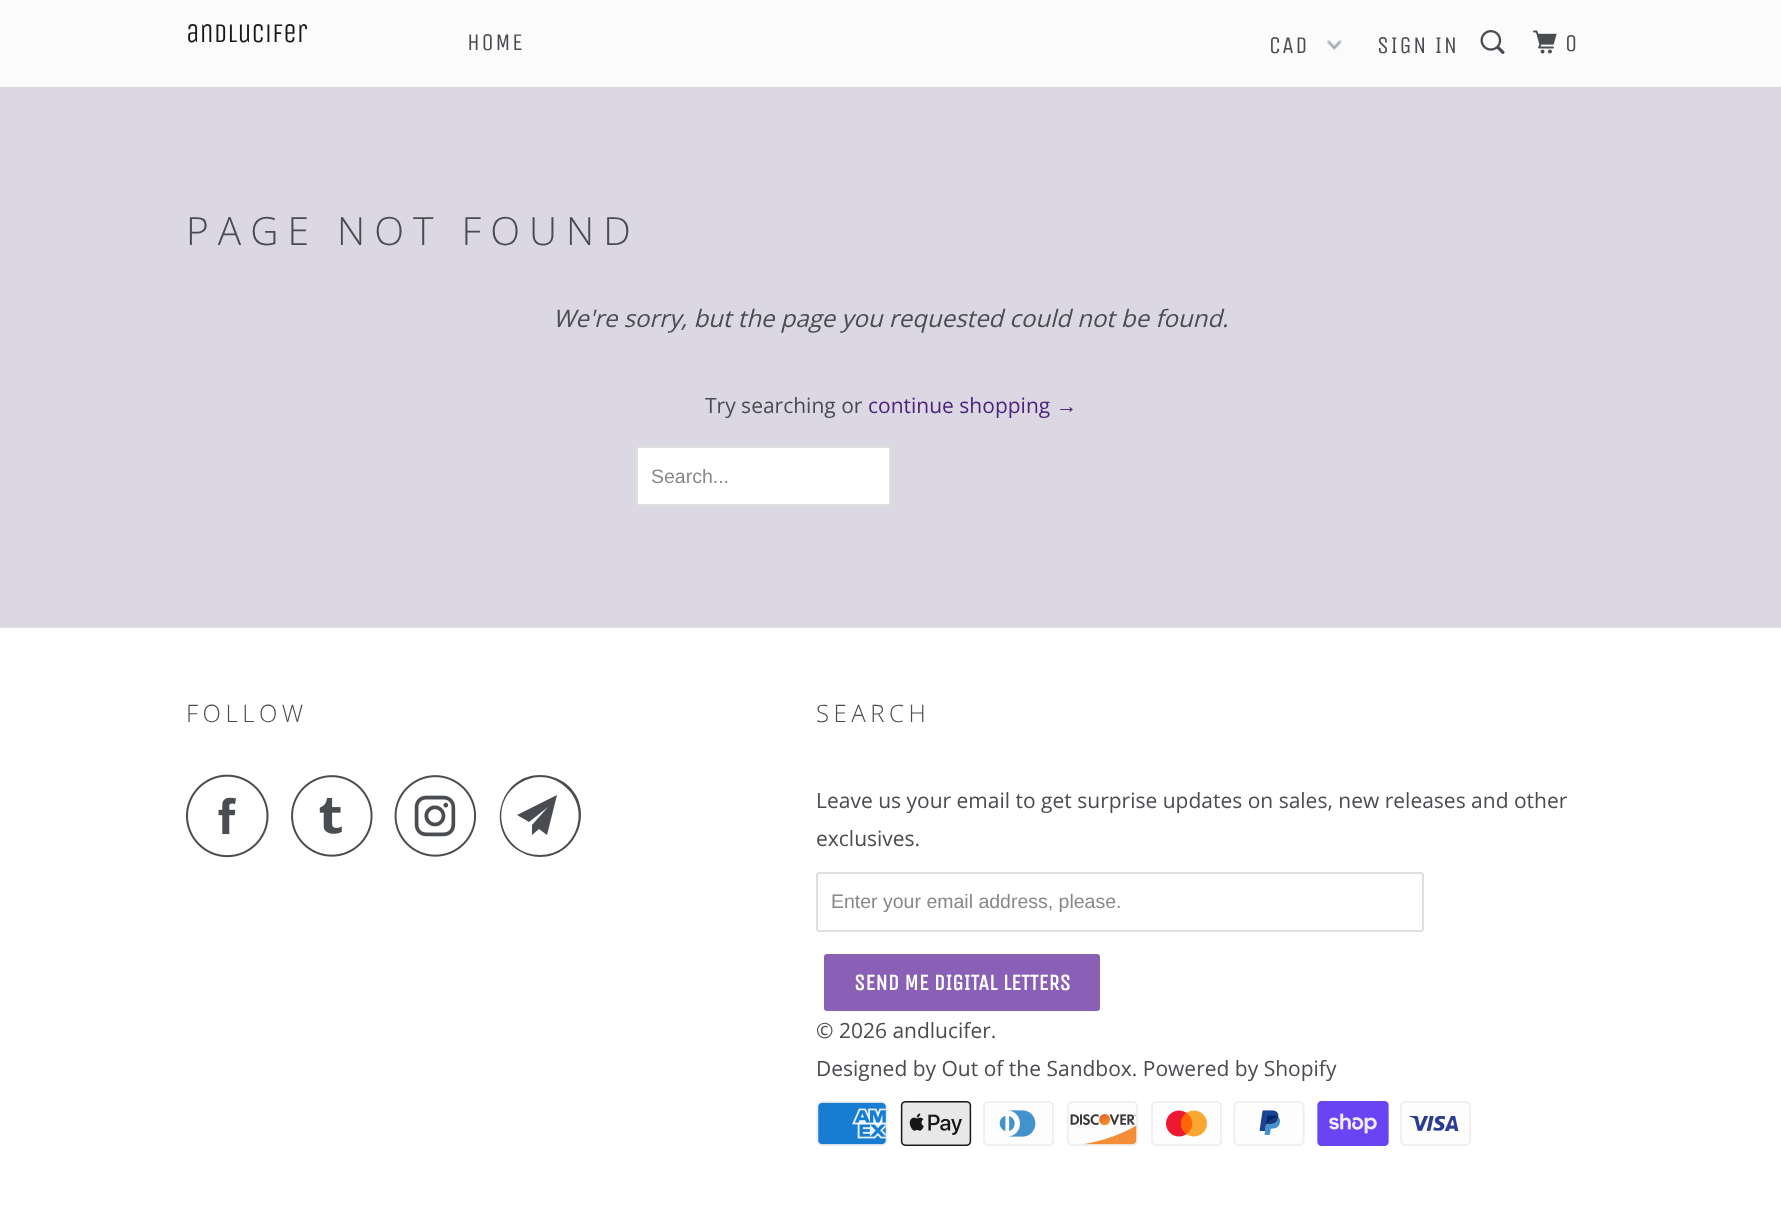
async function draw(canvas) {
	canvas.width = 1781;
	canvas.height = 1223;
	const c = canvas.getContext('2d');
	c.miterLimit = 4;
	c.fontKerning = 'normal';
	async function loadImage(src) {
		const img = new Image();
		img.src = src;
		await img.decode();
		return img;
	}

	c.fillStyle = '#dbd7e3';
	c.fillRect(0, 0, 1781, 1223);
	c.fillStyle = '#fbfbfc';
	c.fillRect(0, 0, 1781, 87);
	c.font = '27px Unica One';
	c.fillStyle = '#171717';
	c.fillText('andlucifer', 186, 42);
	c.letterSpacing = '1.5px';
	c.font = '24px Unica One';
	c.fillStyle = '#494c50';
	c.fillText('HOME', 467, 50);
	c.drawImage(await loadImage('img1.png'), 1327, 40, 15, 10);
	c.fillText('CAD', 1269, 53);
	c.fillText('SIGN IN', 1377, 53);
	c.drawImage(await loadImage('img2.png'), 1480, 30, 25, 24);
	c.drawImage(await loadImage('img3.png'), 1533, 30, 24, 24);
	c.fillText('0', 1565, 51);
	c.letterSpacing = '9px';
	c.font = '300 39px Open Sans';
	c.fillText('PAGE NOT FOUND', 186, 245);
	c.letterSpacing = '0px';
	c.font = 'italic 24px Open Sans';
	c.fillText('We\'re sorry, but the page you requested could not be found.', 553, 327);
	c.font = '21px Open Sans';
	c.fillText('Try searching or', 705, 413);
	c.fillStyle = '#4c257a';
	c.fillText('continue shopping', 868, 413);
	c.font = '21px Liberation Serif';
	c.fillText('→', 1056, 413);
	c.fillStyle = '#fff';
	c.beginPath();
	c.roundRect(637, 447, 253, 58, 2);
	c.fill();
	c.strokeStyle = '#dfdfdf';
	c.lineWidth = 2;
	c.stroke();
	c.font = '19.5px Liberation Sans';
	c.fillStyle = '#888';
	c.fillText('Search...', 651, 483);
	c.fillStyle = '#fff';
	c.fillRect(0, 628, 1781, 595);
	c.fillStyle = '#ddd';
	c.fillRect(0, 626, 1781, 2);
	c.letterSpacing = '4.5px';
	c.font = '300 24px Open Sans';
	c.fillStyle = '#494c50';
	c.fillText('FOLLOW', 186, 722);
	c.drawImage(await loadImage('img4.png'), 186, 774, 83, 84);
	c.drawImage(await loadImage('img5.png'), 291, 775, 82, 82);
	c.drawImage(await loadImage('img6.png'), 394, 775, 82, 82);
	c.beginPath();
	c.moveTo(547, 835);
	c.lineTo(539, 829);
	c.lineTo(532, 835);
	c.lineTo(532, 825);
	c.lineTo(548, 807);
	c.lineTo(529, 822);
	c.lineTo(517, 815);
	c.lineTo(557, 795);
	c.closePath();
	c.moveTo(540, 777);
	c.bezierCurveTo(532, 777, 524, 780, 517, 785);
	c.bezierCurveTo(487, 807, 503, 855, 540, 855);
	c.bezierCurveTo(577, 855, 593, 807, 563, 785);
	c.bezierCurveTo(557, 780, 549, 777, 540, 777);
	c.closePath();
	c.moveTo(540, 857);
	c.bezierCurveTo(532, 857, 523, 854, 516, 849);
	c.bezierCurveTo(485, 825, 502, 775, 540, 775);
	c.bezierCurveTo(549, 775, 558, 778, 565, 783);
	c.bezierCurveTo(596, 806, 579, 857, 540, 857);
	c.closePath();
	c.fill();
	c.fillText('SEARCH', 816, 722);
	c.letterSpacing = '0px';
	c.font = '21px Open Sans';
	c.fillText('Leave us your email to get surprise updates on sales, new releases and other', 816, 808);
	c.fillText('exclusives.', 816, 846);
	c.beginPath();
	c.roundRect(817, 873, 606, 58, 2);
	c.stroke();
	c.font = '19.5px Liberation Sans';
	c.fillStyle = '#888';
	c.fillText('Enter your email address, please.', 831, 908);
	c.fillStyle = '#8960b5';
	c.beginPath();
	c.roundRect(824, 954, 276, 57, 3);
	c.fill();
	c.font = 'bold 22.5px Unica One';
	c.fillStyle = '#fff';
	c.fillText('SEND ME DIGITAL LETTERS', 854, 990);
	c.font = '21px Open Sans';
	c.fillStyle = '#494c50';
	c.fillText('© 2026 andlucifer.', 816, 1038);
	c.fillText('Designed by Out of the Sandbox. Powered by Shopify', 816, 1076);
	c.drawImage(await loadImage('img7.png'), 816, 1101, 72, 45);
	c.drawImage(await loadImage('img8.png'), 900, 1101, 72, 45);
	c.drawImage(await loadImage('img9.png'), 983, 1101, 71, 45);
	c.drawImage(await loadImage('img10.png'), 1067, 1101, 71, 45);
	c.drawImage(await loadImage('img11.png'), 1151, 1101, 71, 45);
	c.drawImage(await loadImage('img12.png'), 1233, 1101, 72, 45);
	c.drawImage(await loadImage('img13.png'), 1317, 1101, 72, 45);
	c.drawImage(await loadImage('img14.png'), 1400, 1101, 71, 45);
}

draw(document.querySelector('canvas'));
